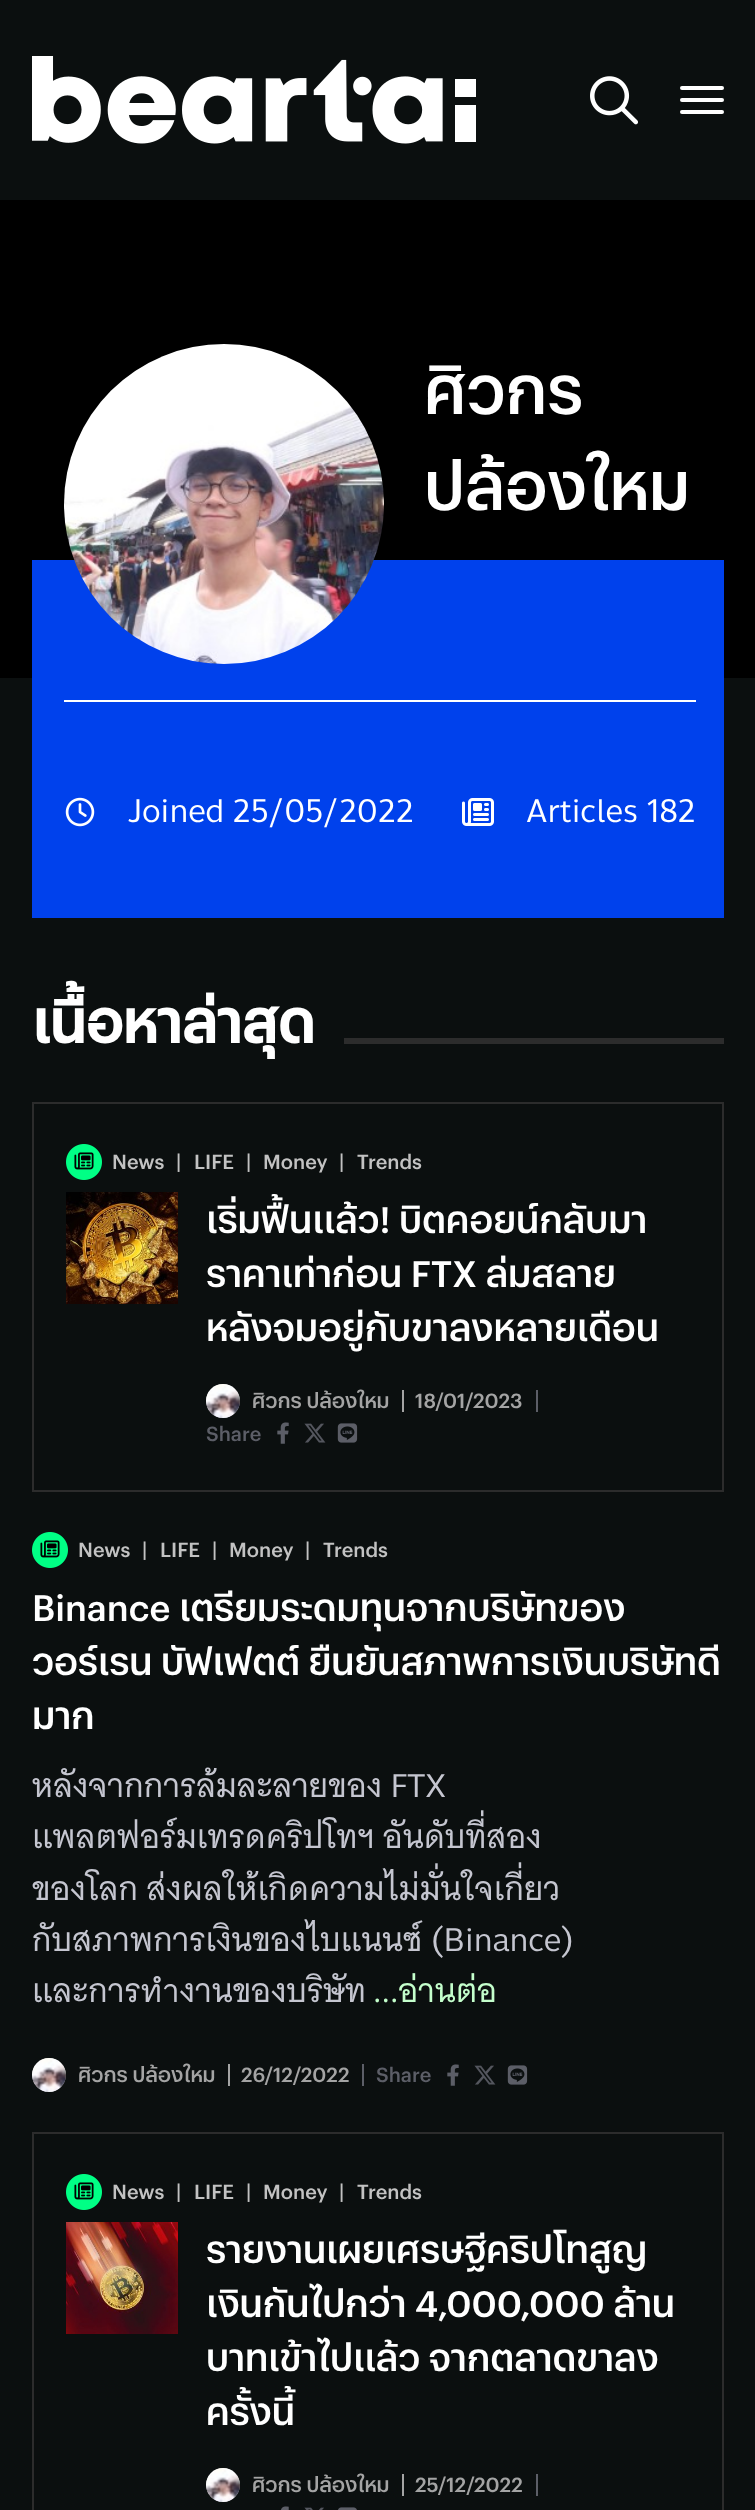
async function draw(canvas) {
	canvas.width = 755;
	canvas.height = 2510;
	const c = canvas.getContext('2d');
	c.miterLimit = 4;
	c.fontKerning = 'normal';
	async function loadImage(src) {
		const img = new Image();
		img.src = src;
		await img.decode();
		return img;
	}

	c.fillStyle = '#0b0f0f';
	c.fillRect(0, 0, 755, 2510);
	c.drawImage(await loadImage('img1.png'), 32, 56, 444, 88);
	c.drawImage(await loadImage('img2.png'), 590, 76, 48, 49);
	c.fillStyle = '#fff';
	c.beginPath();
	c.roundRect(680, 86, 44, 4, 2);
	c.fill();
	c.beginPath();
	c.roundRect(680, 98, 44, 4, 2);
	c.fill();
	c.beginPath();
	c.roundRect(680, 110, 44, 4, 2);
	c.fill();
	c.fillStyle = '#000';
	c.fillRect(0, 200, 755, 478);
	c.fillStyle = '#0041ec';
	c.fillRect(32, 560, 692, 358);
	c.drawImage(await loadImage('img3.png'), 64, 344, 320, 320);
	c.font = '500 64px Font';
	c.fillStyle = '#fff';
	c.fillText('ศิวกร', 424, 414);
	c.fillText('ปล้องใหม', 424, 510);
	c.fillRect(64, 700, 632, 2);
	c.drawImage(await loadImage('img4.png'), 65, 797, 30, 30);
	c.font = '32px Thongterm';
	c.fillText('Joined 25/05/2022', 128, 822);
	c.drawImage(await loadImage('img5.png'), 462, 798, 32, 28);
	c.fillText('Articles 182', 526, 822);
	c.font = 'bold 56px Font';
	c.fillText('เนื้อหาล่าสุด', 32, 1043);
	c.fillStyle = '#2c2c2c';
	c.fillRect(344, 1038, 380, 6);
	c.strokeStyle = '#2c2c2c';
	c.lineWidth = 2;
	c.strokeRect(33, 1103, 690, 388);
	c.drawImage(await loadImage('img6.png'), 66, 1144, 36, 36);
	c.font = '500 20px Font';
	c.fillStyle = '#c2c2c2';
	for (const [text, x, y] of [
		['News', 112, 1169],
		['|', 176, 1169],
		['LIFE', 194, 1169],
		['|', 246, 1169],
		['Money', 263, 1169],
		['|', 339, 1169],
		['Trends', 357, 1169],
	]) {
		c.fillText(text, x, y);
	}
	c.font = '500 36px Font';
	c.fillStyle = '#fff';
	for (const [text, x, y] of [
		['เริ่มฟื้นแล้ว! บิตคอยน์กลับมา', 206, 1233],
		['ราคาเท่าก่อน FTX ล่มสลาย', 206, 1287],
		['หลังจมอยู่กับขาลงหลายเดือน', 206, 1341],
	]) {
		c.fillText(text, x, y);
	}
	c.fillStyle = '#a4a4a4';
	c.beginPath();
	c.arc(223, 1401, 17, 0, 2 * Math.PI);
	c.fill();
	c.drawImage(await loadImage('img7.png'), 206, 1384, 34, 34);
	c.font = '500 20px Font';
	c.fillText('ศิวกร ปล้องใหม', 252, 1408);
	c.fillRect(402, 1390, 2, 22);
	c.fillText('18/01/2023', 415, 1408);
	c.fillStyle = '#5c5e67';
	c.fillRect(536, 1390, 2, 22);
	c.fillText('Share', 206, 1441);
	c.drawImage(await loadImage('img8.png'), 277, 1422, 12, 22);
	c.drawImage(await loadImage('img9.png'), 304, 1423, 22, 20);
	c.drawImage(await loadImage('img10.png'), 337, 1423, 21, 20);
	c.drawImage(await loadImage('img11.png'), 66, 1192, 112, 112);
	c.drawImage(await loadImage('img6.png'), 32, 1532, 36, 36);
	c.fillStyle = '#c2c2c2';
	for (const [text, x, y] of [
		['News', 78, 1557],
		['|', 142, 1557],
		['LIFE', 160, 1557],
		['|', 212, 1557],
		['Money', 229, 1557],
		['|', 305, 1557],
		['Trends', 323, 1557],
	]) {
		c.fillText(text, x, y);
	}
	c.font = '500 36px Font';
	c.fillStyle = '#fff';
	for (const [text, x, y] of [
		['Binance เตรียมระดมทุนจากบริษัทของ', 32, 1621],
		['วอร์เรน บัฟเฟตต์ ยืนยันสภาพการเงินบริษัทดี', 32, 1675],
		['มาก', 32, 1729],
	]) {
		c.fillText(text, x, y);
	}
	c.font = '32px Thongterm';
	c.fillStyle = '#c5c6d0';
	for (const [text, x, y] of [
		['หลังจากการล้มละลายของ FTX', 32, 1797],
		['แพลตฟอร์มเทรดคริปโทฯ อันดับที่สอง', 32, 1848],
		['ของโลก ส่งผลให้เกิดความไม่มั่นใจเกี่ยว', 32, 1900],
		['กับสภาพการเงินของไบแนนซ์ (Binance)', 32, 1951],
		['และการทำงานของบริษัท', 32, 2002],
	]) {
		c.fillText(text, x, y);
	}
	c.fillStyle = '#c4ffcc';
	c.fillText('...อ่านต่อ', 373, 2002);
	c.fillStyle = '#a4a4a4';
	c.beginPath();
	c.arc(49, 2075, 17, 0, 2 * Math.PI);
	c.fill();
	c.drawImage(await loadImage('img7.png'), 32, 2058, 34, 34);
	c.font = '500 20px Font';
	c.fillText('ศิวกร ปล้องใหม', 78, 2082);
	c.fillRect(228, 2064, 2, 22);
	c.fillText('26/12/2022', 241, 2082);
	c.fillStyle = '#5c5e67';
	c.fillRect(362, 2064, 2, 22);
	c.fillText('Share', 376, 2082);
	c.drawImage(await loadImage('img8.png'), 447, 2064, 12, 22);
	c.drawImage(await loadImage('img9.png'), 474, 2065, 22, 20);
	c.drawImage(await loadImage('img10.png'), 507, 2065, 21, 20);
	c.strokeRect(33, 2133, 690, 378);
	c.drawImage(await loadImage('img6.png'), 66, 2174, 36, 36);
	c.fillStyle = '#c2c2c2';
	for (const [text, x, y] of [
		['News', 112, 2199],
		['|', 176, 2199],
		['LIFE', 194, 2199],
		['|', 246, 2199],
		['Money', 263, 2199],
		['|', 339, 2199],
		['Trends', 357, 2199],
	]) {
		c.fillText(text, x, y);
	}
	c.font = '500 36px Font';
	c.fillStyle = '#fff';
	for (const [text, x, y] of [
		['รายงานเผยเศรษฐีคริปโทสูญ', 206, 2263],
		['เงินกันไปกว่า 4,000,000 ล้าน', 206, 2317],
		['บาทเข้าไปแล้ว จากตลาดขาลง', 206, 2371],
		['ครั้งนี้', 206, 2425],
	]) {
		c.fillText(text, x, y);
	}
	c.fillStyle = '#a4a4a4';
	c.beginPath();
	c.arc(223, 2485, 17, 0, 2 * Math.PI);
	c.fill();
	c.drawImage(await loadImage('img7.png'), 206, 2468, 34, 34);
	c.font = '500 20px Font';
	c.fillText('ศิวกร ปล้องใหม', 252, 2492);
	c.fillRect(402, 2474, 2, 22);
	c.fillText('25/12/2022', 415, 2492);
	c.fillStyle = '#5c5e67';
	c.fillRect(536, 2474, 2, 22);
	c.drawImage(await loadImage('img12.png'), 281, 2506, 8, 4);
	c.drawImage(await loadImage('img13.png'), 304, 2507, 20, 3);
	c.drawImage(await loadImage('img14.png'), 338, 2507, 19, 3);
	c.drawImage(await loadImage('img15.png'), 66, 2222, 112, 112);
}

draw(document.querySelector('canvas'));
